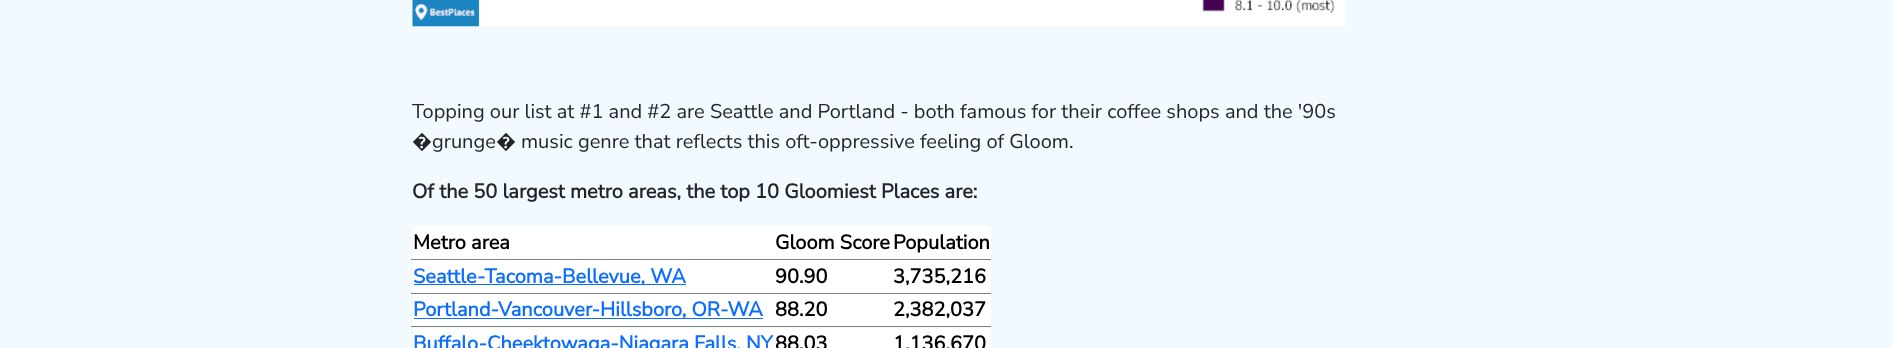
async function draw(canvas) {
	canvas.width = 1893;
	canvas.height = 348;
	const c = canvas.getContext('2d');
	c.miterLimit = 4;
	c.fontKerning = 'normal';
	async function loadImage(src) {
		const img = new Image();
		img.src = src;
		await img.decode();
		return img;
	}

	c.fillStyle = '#f3faff';
	c.fillRect(0, 0, 1893, 348);
	c.drawImage(await loadImage('img1.png'), 412, 0, 933, 27);
	c.font = '200 20px Nunito Sans';
	c.fillStyle = '#212529';
	c.fillText('Topping our list at #1 and #2 are Seattle and Portland - both famous for their coffee shops and the \'90s', 412, 118);
	c.font = '20px Noto Sans';
	c.fillText('�', 412, 148);
	c.font = '200 20px Nunito Sans';
	c.fillText('grunge', 432, 148);
	c.font = '20px Noto Sans';
	c.fillText('�', 496, 148);
	c.font = '200 20px Nunito Sans';
	c.fillText('music genre that reflects this oft-oppressive feeling of Gloom.', 521, 148);
	c.font = 'bold 20px Nunito Sans';
	c.fillText('Of the 50 largest metro areas, the top 10 Gloomiest Places are:', 412, 198);
	c.fillStyle = '#fff';
	c.fillRect(413, 226, 578, 33);
	c.fillStyle = '#808080';
	c.fillRect(411, 259, 580, 1);
	c.fillStyle = '#000';
	for (const [text, x, y] of [
		['Metro area', 413, 249],
		['Gloom Score', 775, 249],
		['Population', 893, 249],
	]) {
		c.fillText(text, x, y);
	}
	for (const [x, y, w, h, color] of [
		[413, 260, 578, 33, '#fff'],
		[411, 293, 580, 1, '#808080'],
		[414, 284, 272, 1, '#0d6efd'],
	]) {
		c.fillStyle = color;
		c.fillRect(x, y, w, h);
	}
	c.fillText('Seattle-Tacoma-Bellevue, WA', 413, 283);
	c.fillStyle = '#000';
	c.fillText('90.90', 775, 283);
	c.fillText('3,735,216', 893, 283);
	for (const [x, y, w, h, color] of [
		[413, 294, 578, 32, '#fff'],
		[411, 326, 580, 1, '#808080'],
		[414, 318, 349, 1, '#0d6efd'],
	]) {
		c.fillStyle = color;
		c.fillRect(x, y, w, h);
	}
	c.fillText('Portland-Vancouver-Hillsboro, OR-WA', 413, 316);
	c.fillStyle = '#000';
	c.fillText('88.20', 775, 316);
	c.fillText('2,382,037', 893, 316);
	c.fillStyle = '#fff';
	c.fillRect(413, 328, 578, 20);
	c.fillStyle = '#0d6efd';
	c.fillText('Buffalo-Cheektowaga-Niagara Falls, NY', 413, 350);
	c.fillStyle = '#000';
	c.fillText('88.03', 775, 350);
	c.fillText('1,136,670', 893, 350);
}

draw(document.querySelector('canvas'));
